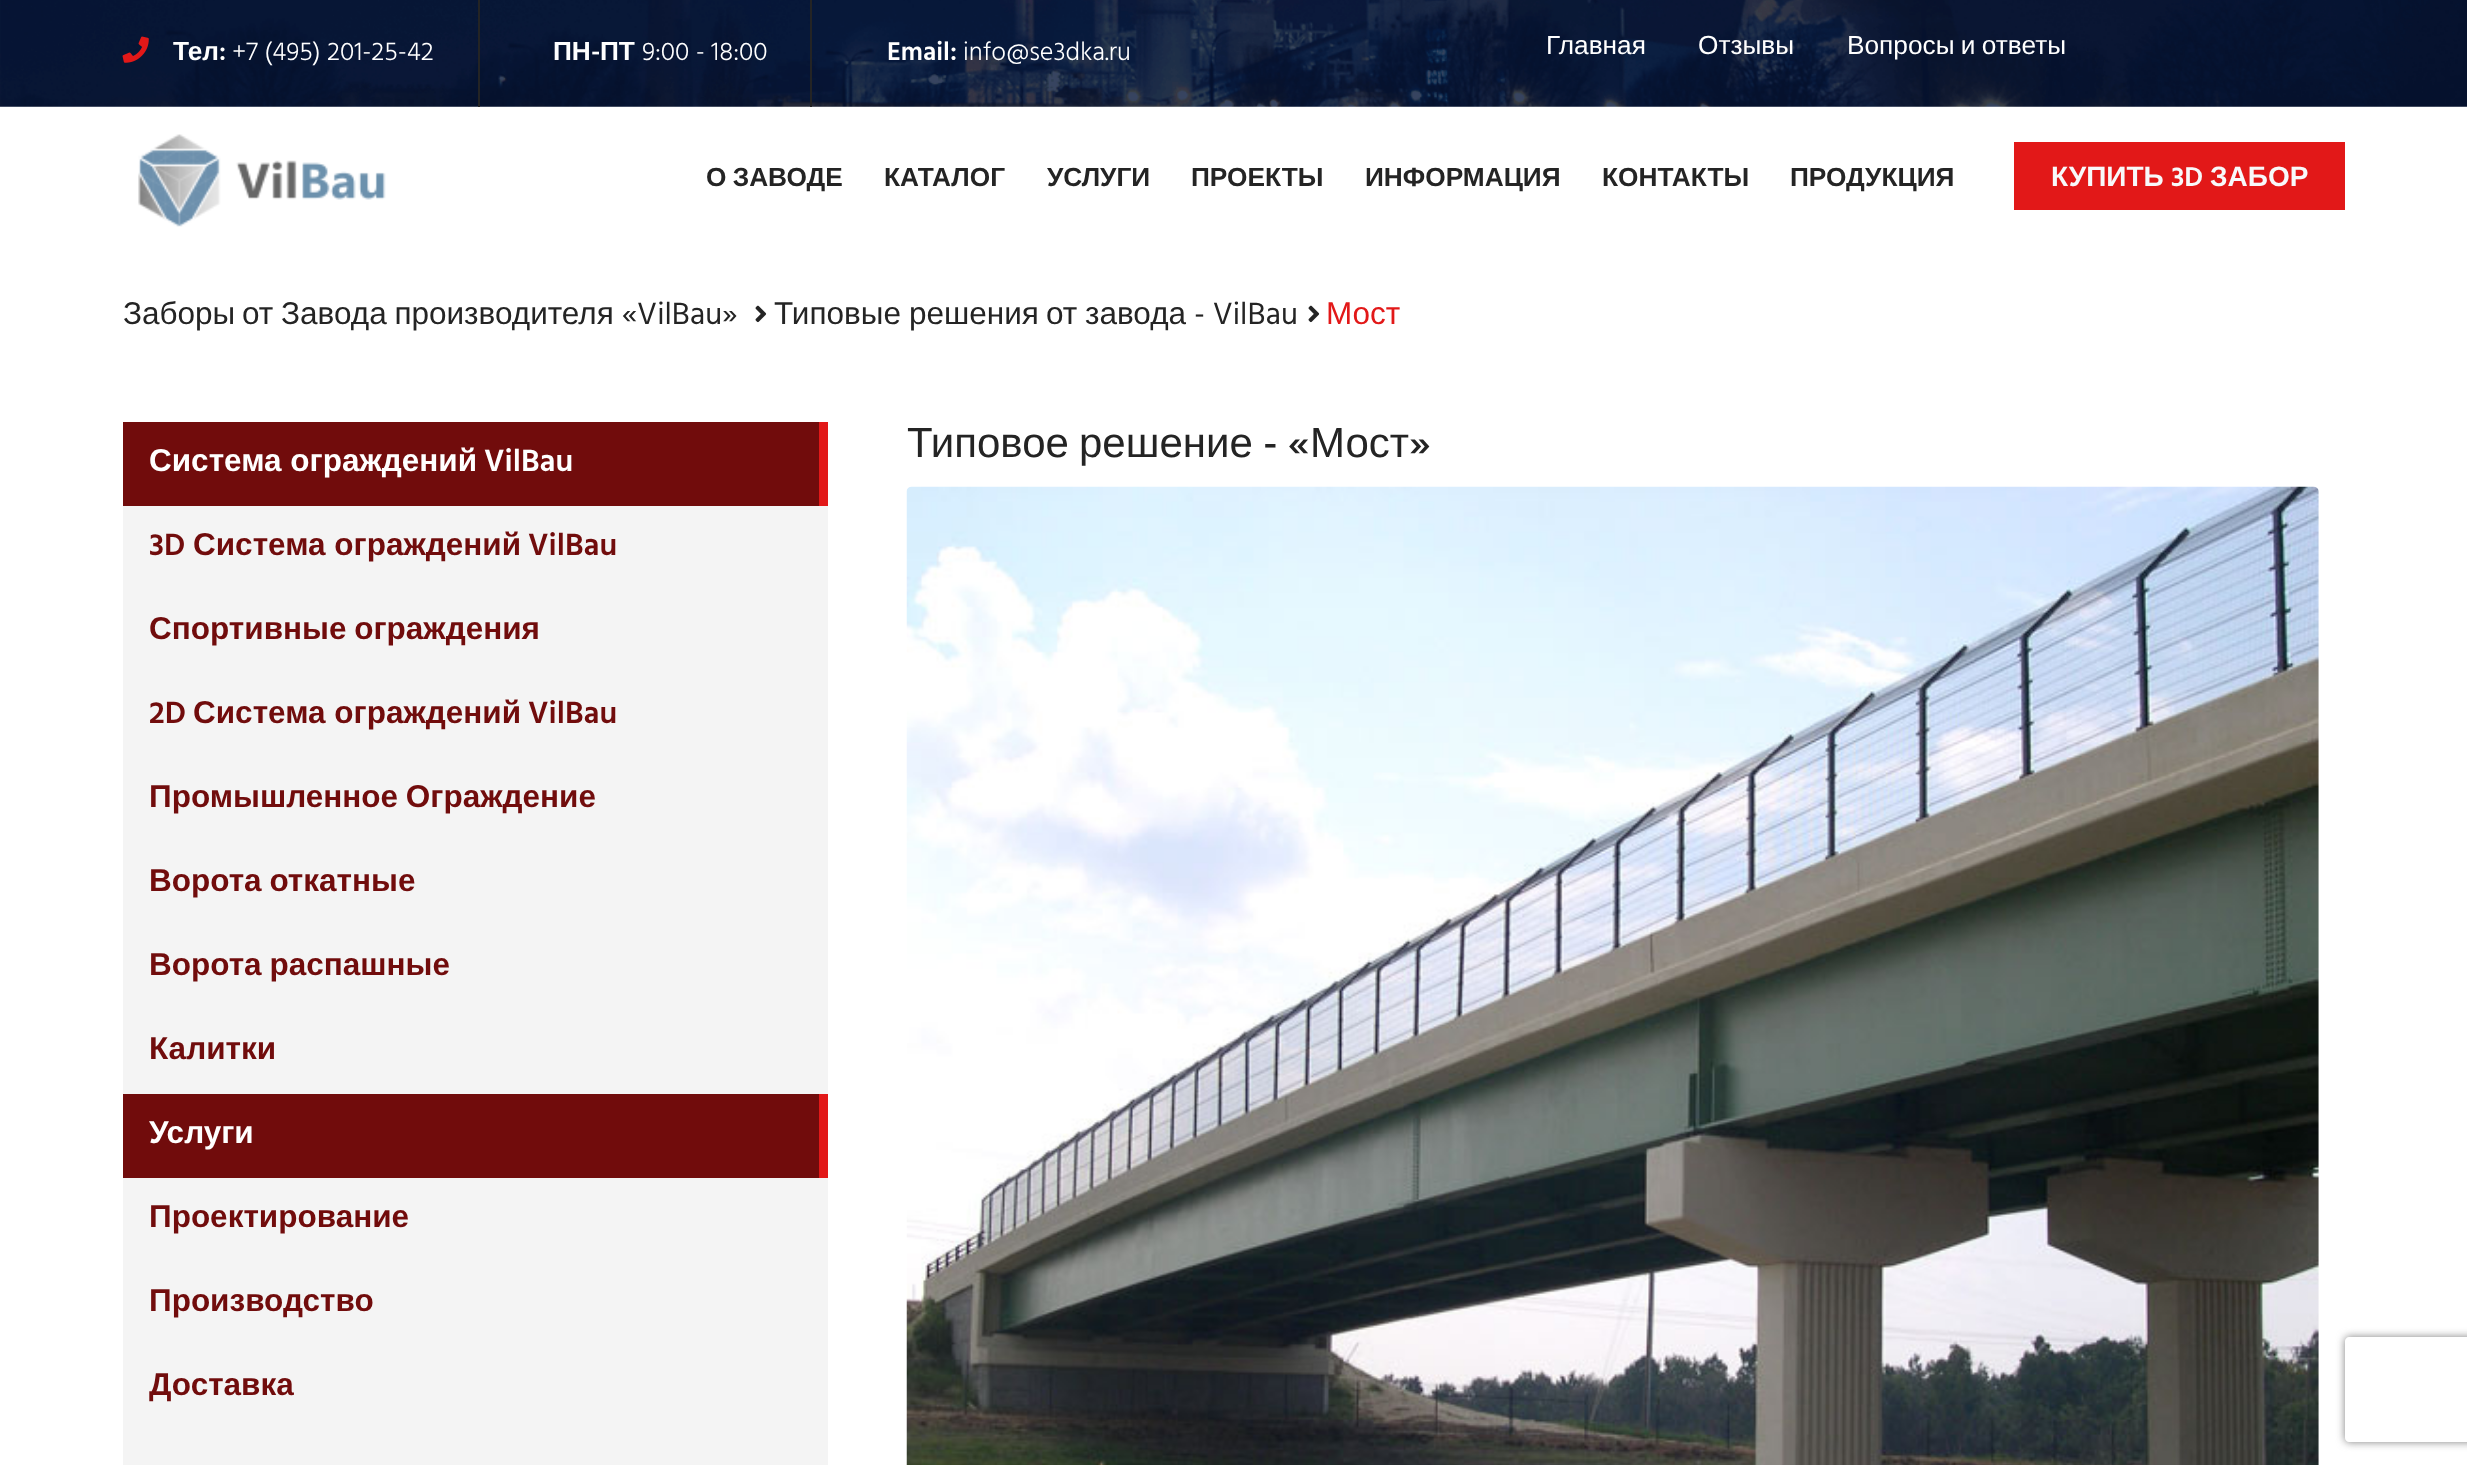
async function draw(canvas) {
	canvas.width = 2467;
	canvas.height = 1465;
	const c = canvas.getContext('2d');
	c.miterLimit = 4;
	c.fontKerning = 'normal';
	async function loadImage(src) {
		const img = new Image();
		img.src = src;
		await img.decode();
		return img;
	}

	c.fillStyle = '#fff';
	c.fillRect(0, 0, 2467, 1465);
	c.drawImage(await loadImage('img1.png'), 0, 0, 2467, 107);
	c.fillStyle = '#242424';
	c.fillRect(478, 0, 2, 107);
	c.drawImage(await loadImage('img2.png'), 122, 36, 27, 27);
	c.font = 'bold 26.25px Liberation Sans';
	c.fillStyle = '#fff';
	c.fillText('Тел', 173, 60);
	c.font = '600 26.25px Hind';
	c.fillText(':', 219, 60);
	c.font = '300 26.25px Hind';
	c.fillText('+7 (495) 201-25-42', 232, 60);
	c.fillStyle = '#242424';
	c.fillRect(810, 0, 2, 107);
	c.font = 'bold 26.25px Liberation Sans';
	c.fillStyle = '#fff';
	c.fillText('ПН', 553, 60);
	c.font = '600 26.25px Hind';
	c.fillText('-', 591, 60);
	c.font = 'bold 26.25px Liberation Sans';
	c.fillText('ПТ', 600, 60);
	c.font = '300 26.25px Hind';
	c.fillText('9:00 - 18:00', 642, 60);
	c.font = '600 26.25px Hind';
	c.fillText('Email:', 887, 60);
	c.font = '300 26.25px Hind';
	c.fillText('info@se3dka.ru', 963, 60);
	c.font = '26.25px Liberation Sans';
	c.fillText('Главная', 1546, 54);
	c.fillText('Отзывы', 1698, 54);
	c.wordSpacing = '-1px';
	c.fillText('Вопросы и ответы', 1847, 54);
	c.drawImage(await loadImage('img3.png'), 138, 134, 248, 93);
	c.font = 'bold 26.25px Liberation Sans';
	c.fillStyle = '#242424';
	c.fillText('О ЗАВОДЕ', 706, 186);
	c.wordSpacing = '0px';
	for (const [text, x, y] of [
		['КАТАЛОГ', 884, 186],
		['УСЛУГИ', 1047, 186],
		['ПРОЕКТЫ', 1191, 186],
		['ИНФОРМАЦИЯ', 1365, 186],
		['КОНТАКТЫ', 1602, 186],
		['ПРОДУКЦИЯ', 1790, 186],
	]) {
		c.fillText(text, x, y);
	}
	c.fillStyle = '#e21818';
	c.fillRect(2014, 142, 331, 68);
	c.font = 'bold 28px Liberation Sans';
	c.fillStyle = '#f8f9fa';
	c.fillText('КУПИТЬ', 2051, 186);
	c.font = '600 28px Hind';
	c.fillText('3D', 2171, 186);
	c.font = 'bold 28px Liberation Sans';
	c.fillText('ЗАБОР', 2210, 186);
	c.font = '31.5px Liberation Sans';
	c.fillStyle = '#242424';
	c.fillText('Заборы', 123, 324);
	c.wordSpacing = '-1px';
	c.fillText('от Завода производителя', 242, 324);
	c.wordSpacing = '0px';
	c.font = '31.5px Hind';
	c.fillText('«VilBau»', 622, 324);
	c.drawImage(await loadImage('img4.png'), 755, 305, 12, 18);
	c.font = '31.5px Liberation Sans';
	for (const [text, x, y] of [
		['Типовые', 774, 324],
		['решения', 909, 324],
		['от', 1046, 324],
		['завода', 1085, 324],
	]) {
		c.fillText(text, x, y);
	}
	c.font = '31.5px Hind';
	c.fillText('- VilBau', 1194, 324);
	c.drawImage(await loadImage('img4.png'), 1308, 305, 12, 18);
	c.font = '31.5px Liberation Sans';
	c.fillStyle = '#e21818';
	c.fillText('Мост', 1326, 324);
	c.fillStyle = '#710c0c';
	c.fillRect(123, 422, 696, 84);
	c.font = 'bold 31.5px Liberation Sans';
	c.fillStyle = '#fff';
	c.fillText('Система ограждений', 149, 471);
	c.font = '600 31.5px Hind';
	c.fillText('VilBau', 484, 471);
	c.fillStyle = '#e21818';
	c.fillRect(819, 422, 9, 84);
	c.fillStyle = '#f4f4f4';
	c.fillRect(123, 506, 705, 588);
	c.fillStyle = '#710c0c';
	c.fillText('3D', 149, 555);
	c.font = 'bold 31.5px Liberation Sans';
	c.fillText('Система ограждений', 193, 555);
	c.font = '600 31.5px Hind';
	c.fillText('VilBau', 528, 555);
	c.wordSpacing = '-1px';
	c.font = 'bold 31.5px Liberation Sans';
	c.fillText('Спортивные ограждения', 149, 639);
	c.wordSpacing = '0px';
	c.font = '600 31.5px Hind';
	c.fillText('2D', 149, 723);
	c.font = 'bold 31.5px Liberation Sans';
	c.fillText('Система ограждений', 193, 723);
	c.font = '600 31.5px Hind';
	c.fillText('VilBau', 528, 723);
	c.wordSpacing = '-1px';
	c.font = 'bold 31.5px Liberation Sans';
	for (const [text, x, y] of [
		['Промышленное Ограждение', 149, 807],
		['Ворота откатные', 149, 891],
		['Ворота распашные', 149, 975],
	]) {
		c.fillText(text, x, y);
	}
	c.wordSpacing = '0px';
	c.fillText('Калитки', 149, 1059);
	c.fillRect(123, 1094, 696, 84);
	c.fillStyle = '#fff';
	c.fillText('Услуги', 149, 1143);
	c.fillStyle = '#e21818';
	c.fillRect(819, 1094, 9, 84);
	c.fillStyle = '#f4f4f4';
	c.fillRect(123, 1178, 705, 287);
	c.fillStyle = '#710c0c';
	for (const [text, x, y] of [
		['Проектирование', 149, 1227],
		['Производство', 149, 1311],
		['Доставка', 149, 1395],
	]) {
		c.fillText(text, x, y);
	}
	c.font = '42px Liberation Sans';
	c.fillStyle = '#242424';
	c.fillText('Типовое', 907, 457);
	c.fillText('решение', 1079, 457);
	c.font = '500 42px Hind';
	c.fillText('- «', 1263, 457);
	c.font = '42px Liberation Sans';
	c.fillText('Мост', 1310, 457);
	c.font = '500 42px Hind';
	c.fillText('»', 1409, 457);
	c.drawImage(await loadImage('img5.png'), 906, 486, 1413, 979);
	c.save();
	c.beginPath();
	c.moveTo(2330, 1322);
	c.lineTo(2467, 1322);
	c.lineTo(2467, 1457);
	c.lineTo(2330, 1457);
	c.closePath();
	c.moveTo(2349, 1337);
	c.lineTo(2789, 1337);
	c.bezierCurveTo(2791, 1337, 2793, 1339, 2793, 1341);
	c.lineTo(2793, 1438);
	c.bezierCurveTo(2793, 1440, 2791, 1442, 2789, 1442);
	c.lineTo(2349, 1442);
	c.bezierCurveTo(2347, 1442, 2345, 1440, 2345, 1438);
	c.lineTo(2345, 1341);
	c.bezierCurveTo(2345, 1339, 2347, 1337, 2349, 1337);
	c.closePath();
	c.clip('evenodd');
	c.fillStyle = '#808080';
	c.filter = 'blur(4.5px)';
	c.beginPath();
	c.roundRect(2345, 1337, 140, 105, 4);
	c.fill();
	c.filter = 'none';
	c.restore();
}

draw(document.querySelector('canvas'));
